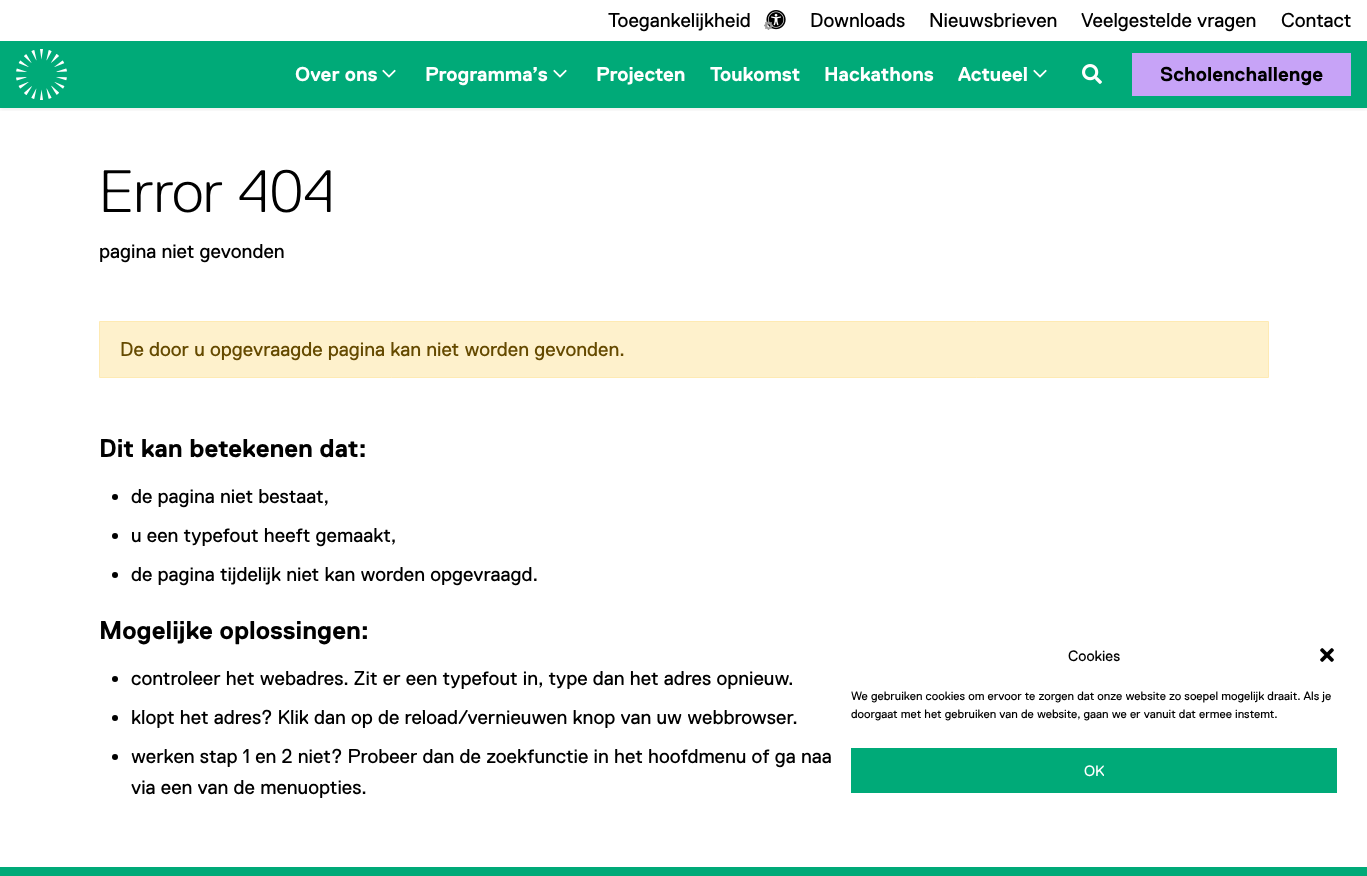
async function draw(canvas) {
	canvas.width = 1367;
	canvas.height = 876;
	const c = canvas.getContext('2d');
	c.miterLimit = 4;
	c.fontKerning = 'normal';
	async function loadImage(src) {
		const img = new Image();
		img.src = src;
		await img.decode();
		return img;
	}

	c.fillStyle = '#fff';
	c.fillRect(0, 0, 1367, 876);
	c.save();
	c.beginPath();
	c.rect(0, 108, 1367, 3);
	c.clip();
	c.fillStyle = '#00000012';
	c.filter = 'blur(2px)';
	c.beginPath();
	c.rect(0, 2, 1367, 108);
	c.fill();
	c.filter = 'none';
	c.restore();
	c.font = '20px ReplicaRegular';
	c.fillStyle = '#000';
	c.fillText('Toegankelijkheid', 608, 27);
	c.drawImage(await loadImage('img1.png'), 764, 10, 22, 20);
	for (const [text, x, y] of [
		['Downloads', 810, 27],
		['Nieuwsbrieven', 929, 27],
		['Veelgestelde vragen', 1081, 27],
		['Contact', 1281, 27],
	]) {
		c.fillText(text, x, y);
	}
	c.fillStyle = '#00aa78';
	c.fillRect(0, 41, 1367, 67);
	c.drawImage(await loadImage('img2.png'), 16, 49, 51, 51);
	c.font = 'bold 20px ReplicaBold';
	c.fillStyle = '#fff';
	c.fillText('Over ons', 295, 81);
	c.drawImage(await loadImage('img3.png'), 382, 69, 14, 9);
	c.fillText('Programma’s', 425, 81);
	c.drawImage(await loadImage('img3.png'), 553, 69, 14, 9);
	for (const [text, x, y] of [
		['Projecten', 596, 81],
		['Toukomst', 710, 81],
		['Hackathons', 824, 81],
		['Actueel', 958, 81],
	]) {
		c.fillText(text, x, y);
	}
	c.drawImage(await loadImage('img3.png'), 1033, 69, 14, 9);
	c.drawImage(await loadImage('img4.png'), 1082, 64, 20, 20);
	c.fillStyle = '#c7a3f7';
	c.fillRect(1132, 53, 219, 43);
	c.fillStyle = '#000';
	c.fillText('Scholenchallenge', 1160, 81);
	c.font = '300 59.5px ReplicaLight';
	c.fillText('Error 404', 99, 212);
	c.font = '20px ReplicaRegular';
	c.fillText('pagina niet gevonden', 99, 258);
	c.fillStyle = '#fef1cc';
	c.beginPath();
	c.rect(99.5, 321.5, 1169, 56);
	c.fill();
	c.strokeStyle = '#feeab3';
	c.stroke();
	c.fillStyle = '#654a00';
	c.fillText('De door u opgevraagde pagina kan niet worden gevonden.', 120, 356);
	c.font = 'bold 25.6px ReplicaBold';
	c.fillStyle = '#000';
	c.fillText('Dit kan betekenen dat:', 99, 457);
	c.beginPath();
	c.arc(115, 497, 3, 0, 2 * Math.PI);
	c.fill();
	c.font = '20px ReplicaRegular';
	c.fillText('de pagina niet bestaat,', 131, 503);
	c.beginPath();
	c.arc(115, 536, 3, 0, 2 * Math.PI);
	c.fill();
	c.fillText('u een typefout heeft gemaakt,', 131, 542);
	c.beginPath();
	c.arc(115, 575, 3, 0, 2 * Math.PI);
	c.fill();
	c.fillText('de pagina tijdelijk niet kan worden opgevraagd.', 131, 581);
	c.font = 'bold 25.6px ReplicaBold';
	c.fillText('Mogelijke oplossingen:', 99, 639);
	c.beginPath();
	c.arc(115, 679, 3, 0, 2 * Math.PI);
	c.fill();
	c.font = '20px ReplicaRegular';
	c.fillText('controleer het webadres. Zit er een typefout in, type dan het adres opnieuw.', 131, 685);
	c.beginPath();
	c.arc(115, 718, 3, 0, 2 * Math.PI);
	c.fill();
	c.fillText('klopt het adres? Klik dan op de reload/vernieuwen knop van uw webbrowser.', 131, 724);
	c.beginPath();
	c.arc(115, 757, 3, 0, 2 * Math.PI);
	c.fill();
	c.fillText('werken stap 1 en 2 niet? Probeer dan de zoekfunctie in het hoofdmenu of ga naa', 131, 763);
	c.fillText('via een van de menuopties.', 131, 794);
	c.fillStyle = '#00aa78';
	c.fillRect(0, 867, 1367, 9);
	c.font = '15px ReplicaRegular';
	c.fillStyle = '#000';
	c.fillText('Cookies', 1068, 661);
	c.drawImage(await loadImage('img5.png'), 1320, 648, 14, 14);
	c.font = '12px ReplicaRegular';
	c.fillText('We gebruiken cookies om ervoor te zorgen dat onze website zo soepel mogelijk draait. Als je', 851, 700);
	c.fillText('doorgaat met het gebruiken van de website, gaan we er vanuit dat ermee instemt.', 851, 718);
	c.fillStyle = '#00aa78';
	c.fillRect(851, 748, 486, 45);
	c.font = '15px ReplicaRegular';
	c.fillStyle = '#fff';
	c.fillText('OK', 1084, 776);
}

draw(document.querySelector('canvas'));
